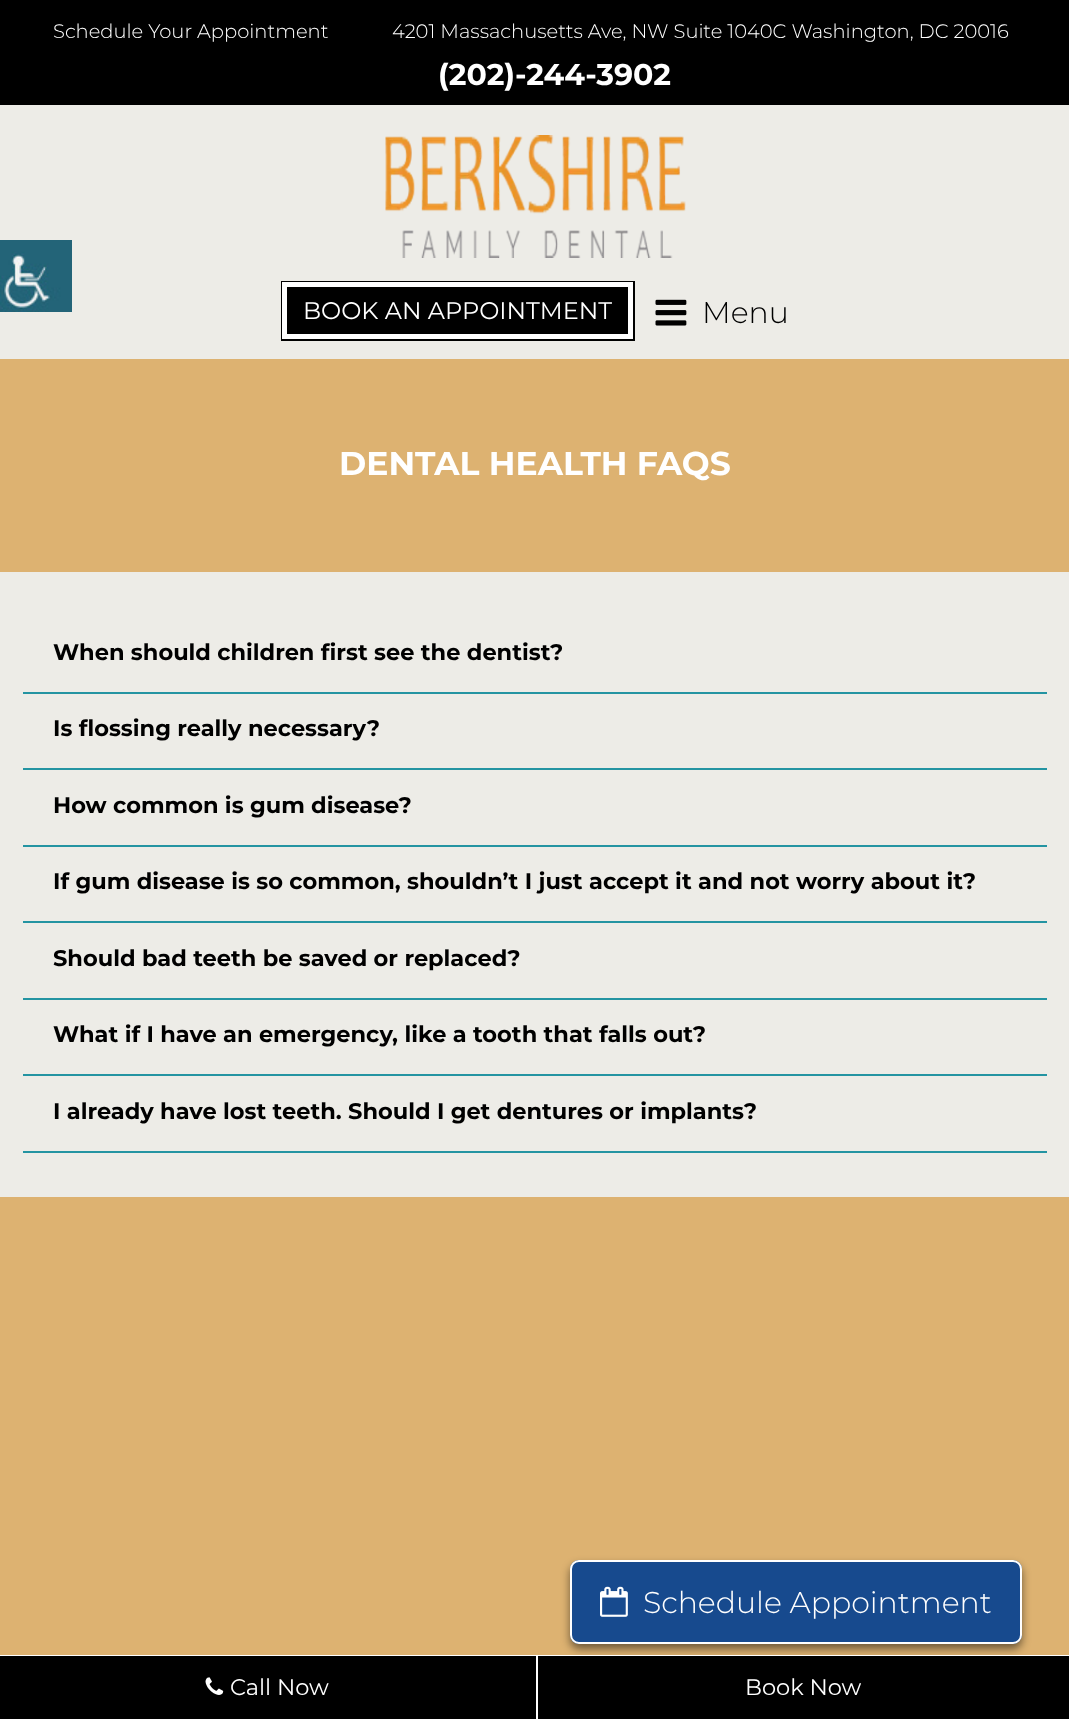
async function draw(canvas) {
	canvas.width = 1069;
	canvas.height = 1719;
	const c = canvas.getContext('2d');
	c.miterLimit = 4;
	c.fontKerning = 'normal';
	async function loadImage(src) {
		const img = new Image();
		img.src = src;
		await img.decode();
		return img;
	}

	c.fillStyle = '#edece7';
	c.fillRect(0, 0, 1069, 1719);
	c.drawImage(await loadImage('img1.png'), 0, 240, 72, 72);
	c.fillStyle = '#000';
	c.fillRect(0, 0, 1069, 105);
	c.font = '300 19.5px Montserrat';
	c.fillStyle = '#fff';
	c.fillText('Schedule Your Appointment', 53, 38);
	c.fillText('4201 Massachusetts Ave, NW Suite 1040C Washington, DC 20016', 392, 38);
	c.font = 'bold 30px Montserrat';
	c.fillText('(202)-244-3902', 438, 85);
	c.drawImage(await loadImage('img2.png'), 385, 135, 301, 123);
	c.fillStyle = '#000';
	c.fillRect(281, 281, 354, 60);
	c.strokeStyle = '#fff';
	c.lineWidth = 5;
	c.strokeRect(284.5, 284.5, 346, 52);
	c.font = '24px Montserrat';
	c.fillStyle = '#fff';
	c.fillText('BOOK AN APPOINTMENT', 303, 319);
	c.drawImage(await loadImage('img3.png'), 655, 299, 32, 27);
	c.font = '300 30px Montserrat';
	c.fillStyle = '#000';
	c.fillText('Menu', 702, 323);
	c.fillStyle = '#ddb271';
	c.fillRect(0, 359, 1069, 213);
	c.font = 'bold 33px Montserrat';
	c.fillStyle = '#fff';
	c.fillText('DENTAL HEALTH FAQS', 339, 475);
	c.fillStyle = '#2494a2';
	c.fillRect(23, 692, 1024, 2);
	c.font = 'bold 22.5px Montserrat';
	c.fillStyle = '#000';
	c.fillText('When should children first see the dentist?', 53, 660);
	c.fillStyle = '#2494a2';
	c.fillRect(23, 768, 1024, 2);
	c.fillStyle = '#000';
	c.fillText('Is flossing really necessary?', 53, 736);
	c.fillStyle = '#2494a2';
	c.fillRect(23, 845, 1024, 2);
	c.fillStyle = '#000';
	c.fillText('How common is gum disease?', 53, 813);
	c.fillStyle = '#2494a2';
	c.fillRect(23, 921, 1024, 2);
	c.fillStyle = '#000';
	c.fillText('If gum disease is so common, shouldn’t I just accept it and not worry about it?', 53, 889);
	c.fillStyle = '#2494a2';
	c.fillRect(23, 998, 1024, 2);
	c.fillStyle = '#000';
	c.fillText('Should bad teeth be saved or replaced?', 53, 966);
	c.fillStyle = '#2494a2';
	c.fillRect(23, 1074, 1024, 2);
	c.fillStyle = '#000';
	c.fillText('What if I have an emergency, like a tooth that falls out?', 53, 1042);
	c.fillStyle = '#2494a2';
	c.fillRect(23, 1151, 1024, 2);
	c.fillStyle = '#000';
	c.fillText('I already have lost teeth. Should I get dentures or implants?', 53, 1119);
	c.fillStyle = '#ddb271';
	c.fillRect(0, 1197, 1069, 458);
	c.fillStyle = '#00000080';
	c.filter = 'blur(4.5px)';
	c.beginPath();
	c.roundRect(570, 1565, 452, 84, 9);
	c.fill();
	c.filter = 'none';
	c.fillStyle = '#fff';
	c.fillRect(0, 1655, 1069, 1);
	c.fillStyle = '#000';
	c.fillRect(0, 1656, 536, 63);
	c.drawImage(await loadImage('img4.png'), 205, 1677, 19, 18);
	c.font = '22.5px Montserrat';
	c.fillStyle = '#fff';
	c.fillText('Call Now', 230, 1695);
	c.fillStyle = '#000';
	c.fillRect(538, 1656, 531, 63);
	c.fillStyle = '#fff';
	c.fillRect(536, 1656, 2, 63);
	c.fillText('Book Now', 745, 1695);
	c.fillStyle = '#174a8e';
	c.beginPath();
	c.roundRect(570, 1560, 452, 84, 9);
	c.fill();
	c.drawImage(await loadImage('img5.png'), 600, 1586, 28, 31);
	c.beginPath();
	c.roundRect(571, 1561, 450, 82, 8);
	c.lineWidth = 2;
	c.stroke();
	c.font = '300 30px Montserrat';
	c.fillStyle = '#fff';
	c.fillText('Schedule Appointment', 643, 1613);
}

draw(document.querySelector('canvas'));
